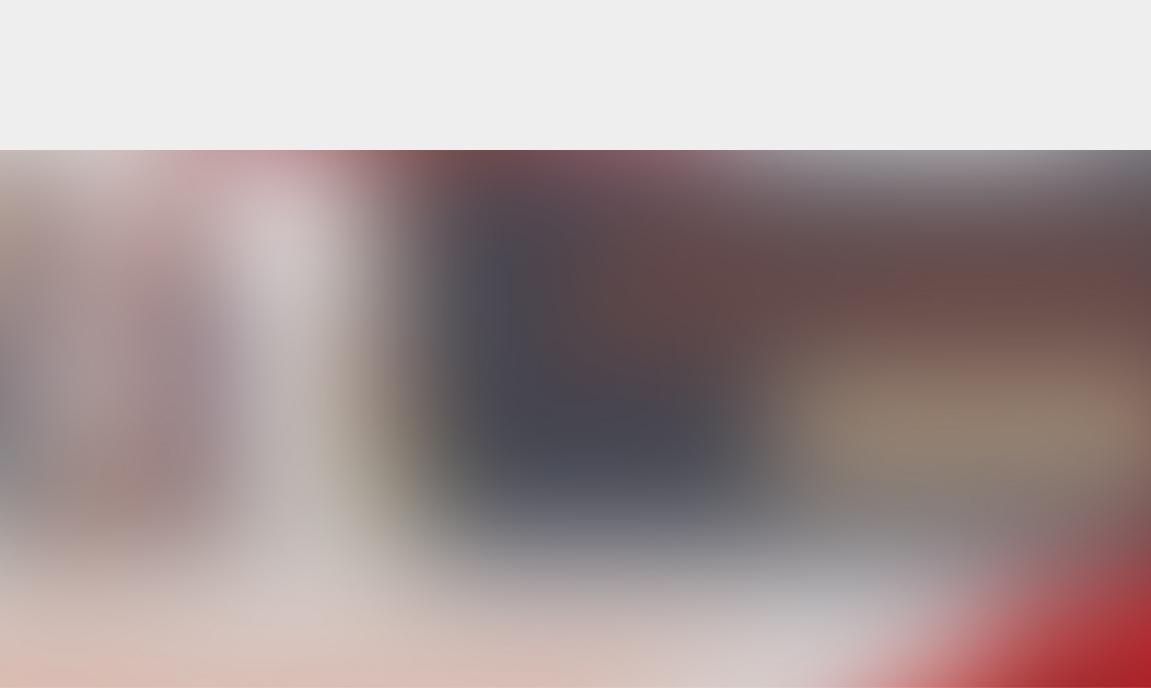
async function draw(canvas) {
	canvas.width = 1151;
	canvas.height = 688;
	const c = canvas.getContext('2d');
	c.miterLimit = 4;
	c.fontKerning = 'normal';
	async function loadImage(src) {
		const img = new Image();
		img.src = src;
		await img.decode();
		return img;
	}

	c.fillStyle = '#fff';
	c.fillRect(0, 0, 1151, 688);
	c.drawImage(await loadImage('img1.png'), 0, 150, 1151, 538);
	c.fillStyle = '#eee';
	c.fillRect(0, 0, 1151, 150);
}

draw(document.querySelector('canvas'));
